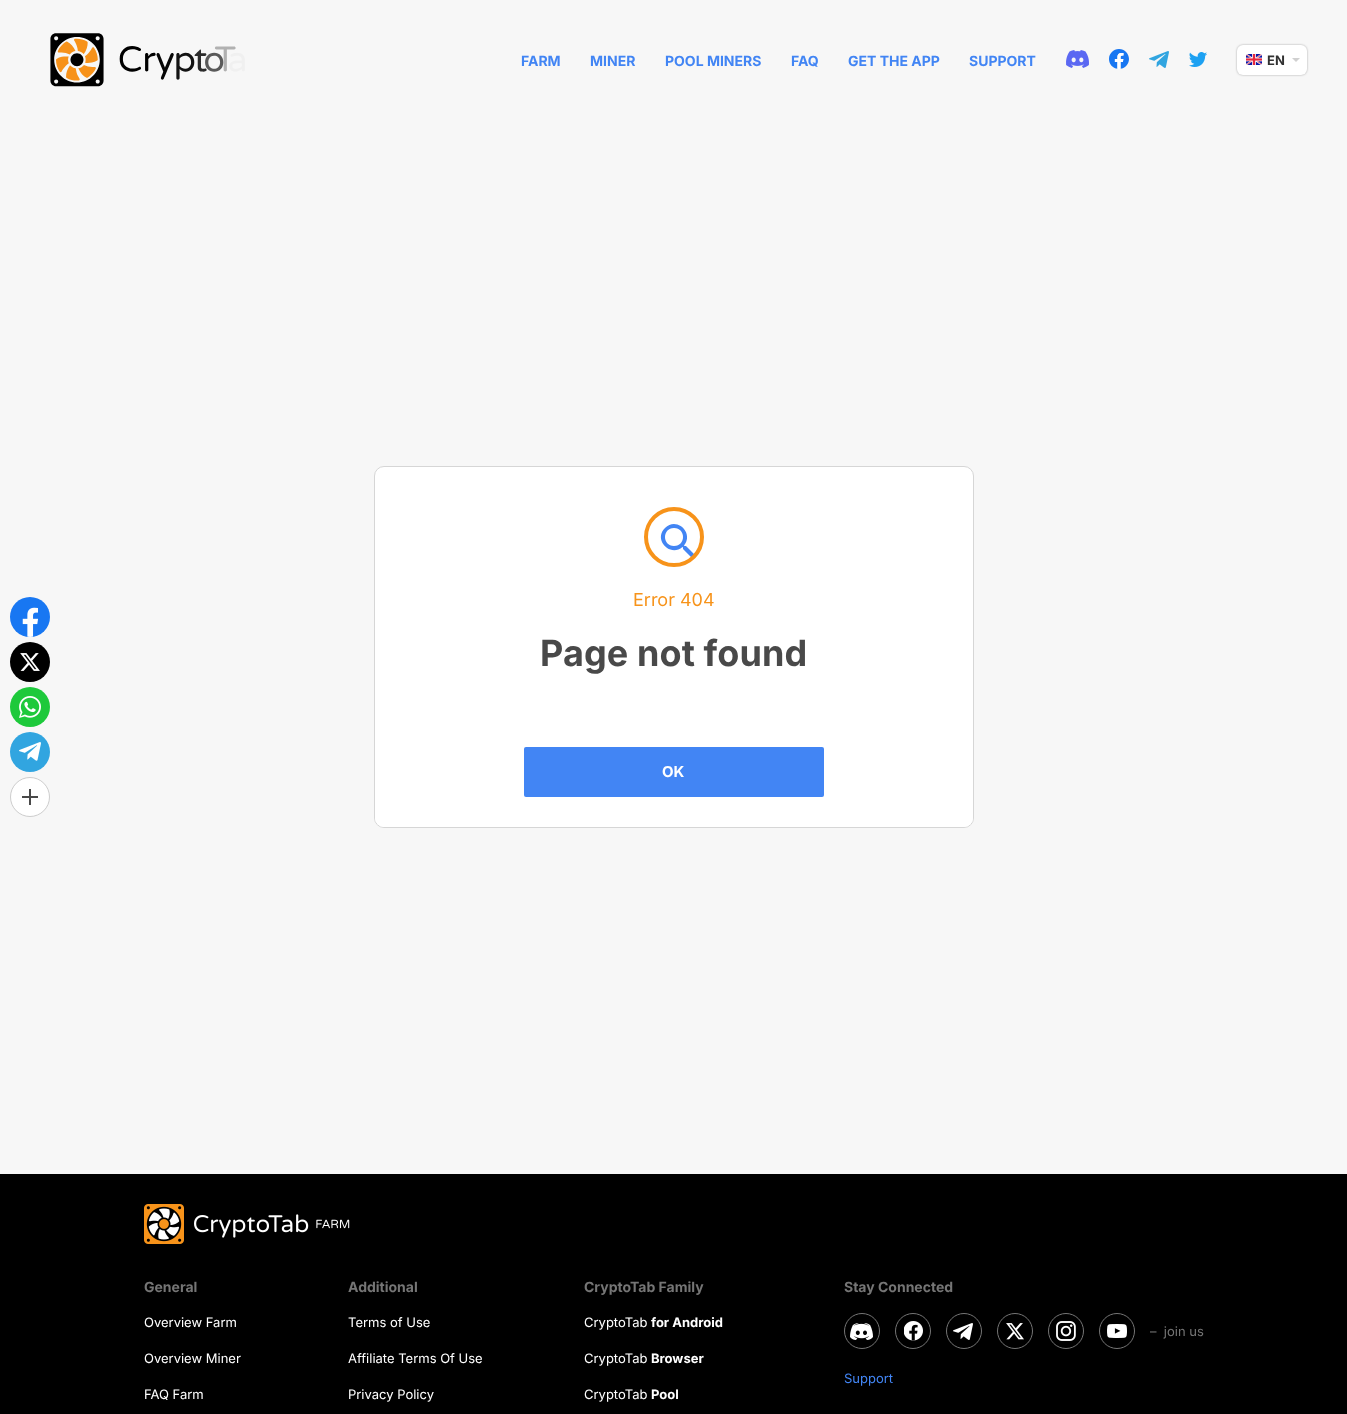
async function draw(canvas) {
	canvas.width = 1347;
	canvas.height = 1414;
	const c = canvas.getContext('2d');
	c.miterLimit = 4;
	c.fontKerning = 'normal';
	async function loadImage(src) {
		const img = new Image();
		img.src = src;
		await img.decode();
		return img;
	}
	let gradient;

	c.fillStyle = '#f7f7f7';
	c.fillRect(0, 0, 1347, 1414);
	c.fillStyle = '#1877f2';
	c.beginPath();
	c.arc(30, 617, 20, 0, 2 * Math.PI);
	c.fill();
	c.drawImage(await loadImage('img1.png'), 22, 607, 16, 30);
	c.fillStyle = '#000';
	c.beginPath();
	c.arc(30, 662, 20, 0, 2 * Math.PI);
	c.fill();
	c.drawImage(await loadImage('img2.png'), 20, 653, 20, 18);
	c.fillStyle = '#1dc93b';
	c.beginPath();
	c.arc(30, 707, 20, 0, 2 * Math.PI);
	c.fill();
	c.drawImage(await loadImage('img3.png'), 19, 696, 22, 22);
	c.fillStyle = '#31a5e0';
	c.beginPath();
	c.arc(30, 752, 20, 0, 2 * Math.PI);
	c.fill();
	c.drawImage(await loadImage('img4.png'), 19, 742, 22, 19);
	c.fillStyle = '#fff';
	c.beginPath();
	c.arc(30, 797, 19.5, 0, 2 * Math.PI);
	c.fill();
	c.strokeStyle = '#cdcdcd';
	c.stroke();
	c.fillStyle = '#494949';
	c.fillRect(29, 789, 2, 16);
	c.fillRect(22, 796, 16, 2);
	c.drawImage(await loadImage('img5.png'), 50, 33, 195, 54);
	c.font = 'bold 14px Inter';
	c.fillStyle = '#4285f4';
	for (const [text, x, y] of [
		['FARM', 521, 66],
		['MINER', 590, 66],
		['POOL MINERS', 665, 66],
		['FAQ', 791, 66],
		['GET THE APP', 848, 66],
		['SUPPORT', 969, 66],
	]) {
		c.fillText(text, x, y);
	}
	c.drawImage(await loadImage('img6.png'), 1066, 50, 23, 18);
	c.drawImage(await loadImage('img7.png'), 1109, 49, 20, 20);
	c.drawImage(await loadImage('img8.png'), 1149, 51, 20, 17);
	c.drawImage(await loadImage('img9.png'), 1189, 52, 18, 15);
	c.fillStyle = '#0000004d';
	c.filter = 'blur(1px)';
	c.beginPath();
	c.roundRect(1237, 45, 70, 30, 6);
	c.fill();
	c.filter = 'none';
	c.fillStyle = '#fff';
	c.beginPath();
	c.roundRect(1237, 45, 70, 30, 6);
	c.fill();
	c.drawImage(await loadImage('img10.png'), 1246, 54, 16, 11);
	c.font = 'bold 13px Inter';
	c.fillStyle = '#323232';
	c.fillText('EN', 1267, 65);
	c.fillStyle = '#d0d0d0';
	c.beginPath();
	c.moveTo(1292, 58);
	c.lineTo(1300, 58);
	c.lineTo(1296, 62);
	c.closePath();
	c.fill();
	c.fillStyle = '#fff';
	c.beginPath();
	c.roundRect(374.5, 466.5, 599, 361, 9.5);
	c.fill();
	c.strokeStyle = '#d6d6d6';
	c.stroke();
	c.fillStyle = '#4285f4';
	c.beginPath();
	c.moveTo(674, 546);
	c.bezierCurveTo(662, 546, 662, 528, 674, 528);
	c.bezierCurveTo(686, 528, 686, 546, 674, 546);
	c.closePath();
	c.moveTo(686, 546);
	c.lineTo(684.5, 546);
	c.lineTo(684, 545.5);
	c.bezierCurveTo(694.5, 533, 676.5, 516, 665, 528);
	c.bezierCurveTo(653, 539.5, 670, 557.5, 682.5, 547);
	c.lineTo(683, 547.5);
	c.lineTo(683, 549);
	c.lineTo(693, 559);
	c.lineTo(696, 556);
	c.closePath();
	c.fill('evenodd');
	c.beginPath();
	c.arc(674, 537, 28, 0, 2 * Math.PI);
	c.strokeStyle = '#f7931a';
	c.lineWidth = 4;
	c.stroke();
	c.font = '18px Inter';
	c.fillStyle = '#f7931a';
	c.fillText('Error 404', 633, 606);
	c.letterSpacing = '0.1px';
	c.font = 'bold 36px Inter';
	c.fillStyle = '#494949';
	c.fillText('Page not found', 540, 666);
	gradient = c.createLinearGradient(674, 767, 674, 827);
	gradient.addColorStop(0, '#ffffff00');
	gradient.addColorStop(0.65, '#fff');
	c.fillStyle = gradient;
	c.beginPath();
	c.roundRect(375, 767, 598, 60, [0, 0, 9, 9]);
	c.fill();
	c.fillStyle = '#4285f4';
	c.beginPath();
	c.roundRect(524, 747, 300, 50, 2);
	c.fill();
	c.letterSpacing = '0px';
	c.font = 'bold 15px Inter';
	c.fillStyle = '#fff';
	c.fillText('OK', 662, 777);
	c.fillStyle = '#000';
	c.fillRect(0, 1174, 1347, 240);
	c.drawImage(await loadImage('img11.png'), 144, 1204, 206, 40);
	c.font = 'bold 14px Inter';
	c.fillStyle = '#757575';
	c.fillText('General', 144, 1292);
	c.font = '13px Inter';
	c.fillStyle = '#fff';
	for (const [text, x, y] of [
		['Overview Farm', 144, 1327],
		['Overview Miner', 144, 1363],
		['FAQ Farm', 144, 1399],
	]) {
		c.fillText(text, x, y);
	}
	c.font = 'bold 14px Inter';
	c.fillStyle = '#757575';
	c.fillText('Additional', 348, 1292);
	c.font = '13px Inter';
	c.fillStyle = '#fff';
	for (const [text, x, y] of [
		['Terms of Use', 348, 1327],
		['Affiliate Terms Of Use', 348, 1363],
		['Privacy Policy', 348, 1399],
	]) {
		c.fillText(text, x, y);
	}
	c.font = 'bold 14px Inter';
	c.fillStyle = '#757575';
	c.fillText('CryptoTab Family', 584, 1292);
	c.font = '13px Inter';
	c.fillStyle = '#fff';
	c.fillText('CryptoTab', 584, 1327);
	c.font = 'bold 13px Inter';
	c.fillText('for Android', 651, 1327);
	c.font = '13px Inter';
	c.fillText('CryptoTab', 584, 1363);
	c.font = 'bold 13px Inter';
	c.fillText('Browser', 651, 1363);
	c.font = '13px Inter';
	c.fillText('CryptoTab', 584, 1399);
	c.font = 'bold 13px Inter';
	c.fillText('Pool', 651, 1399);
	c.font = 'bold 14px Inter';
	c.fillStyle = '#757575';
	c.fillText('Stay Connected', 844, 1292);
	c.beginPath();
	c.arc(862, 1331, 17.5, 0, 2 * Math.PI);
	c.strokeStyle = '#757575';
	c.lineWidth = 1;
	c.stroke();
	c.drawImage(await loadImage('img12.png'), 850, 1323, 23, 17);
	c.beginPath();
	c.arc(913, 1331, 17.5, 0, 2 * Math.PI);
	c.stroke();
	c.drawImage(await loadImage('img13.png'), 904, 1321, 19, 20);
	c.beginPath();
	c.arc(964, 1331, 17.5, 0, 2 * Math.PI);
	c.stroke();
	c.drawImage(await loadImage('img14.png'), 953, 1323, 20, 17);
	c.beginPath();
	c.arc(1015, 1331, 17.5, 0, 2 * Math.PI);
	c.stroke();
	c.drawImage(await loadImage('img15.png'), 1006, 1323, 18, 17);
	c.beginPath();
	c.arc(1066, 1331, 17.5, 0, 2 * Math.PI);
	c.stroke();
	c.drawImage(await loadImage('img16.png'), 1056, 1321, 20, 20);
	c.beginPath();
	c.arc(1117, 1331, 17.5, 0, 2 * Math.PI);
	c.stroke();
	c.drawImage(await loadImage('img17.png'), 1107, 1324, 20, 14);
	c.font = '13px Inter';
	c.fillText('–  join us', 1150, 1336);
	c.fillStyle = '#4285f4';
	c.fillText('Support', 844, 1383);
}

draw(document.querySelector('canvas'));
